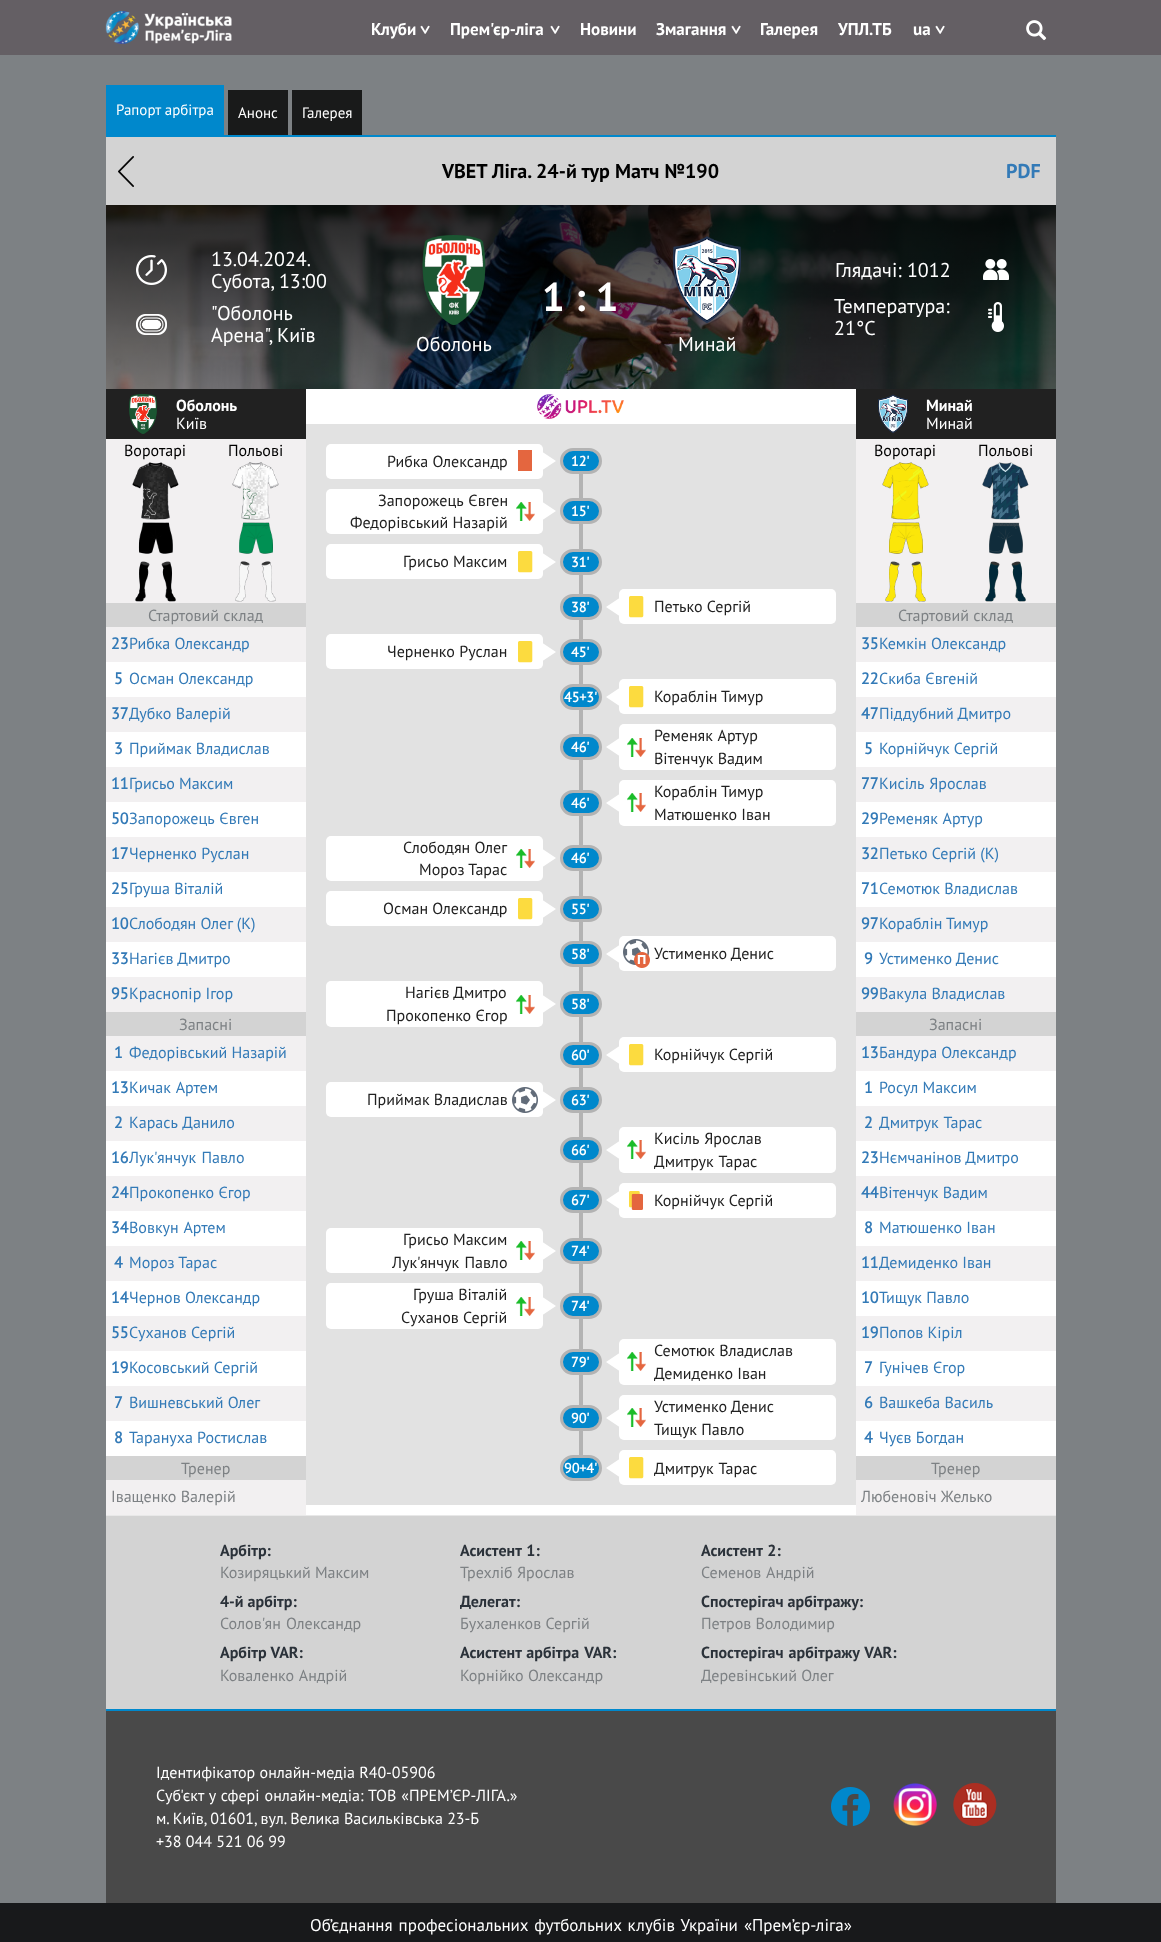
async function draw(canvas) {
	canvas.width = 1161;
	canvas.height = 1942;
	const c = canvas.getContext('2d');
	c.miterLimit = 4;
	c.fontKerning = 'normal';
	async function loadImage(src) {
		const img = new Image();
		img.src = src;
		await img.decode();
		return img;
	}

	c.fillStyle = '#7d8184';
	c.fillRect(0, 0, 1161, 1942);
	c.fillStyle = '#645f64';
	c.fillRect(0, 0, 1161, 55);
	c.drawImage(await loadImage('img1.png'), 105, 11, 127, 33);
	c.font = 'bold 17px PT Sans';
	c.fillStyle = '#fff';
	c.fillText('Клуби', 371, 35);
	c.font = 'bold 18px "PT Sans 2"';
	c.save();
	c.translate(419, 25);
	c.rotate(90 * Math.PI / 180);
	c.fillText('>', 0, 0);
	c.restore();
	c.font = 'bold 17px PT Sans';
	c.fillText('Прем\'єр-ліга', 450, 35);
	c.font = 'bold 18px "PT Sans 2"';
	c.save();
	c.translate(549, 25);
	c.rotate(90 * Math.PI / 180);
	c.fillText('>', 0, 0);
	c.restore();
	c.font = 'bold 17px PT Sans';
	c.fillText('Новини', 580, 35);
	c.fillText('Змагання', 656, 35);
	c.font = 'bold 18px "PT Sans 2"';
	c.save();
	c.translate(730, 25);
	c.rotate(90 * Math.PI / 180);
	c.fillText('>', 0, 0);
	c.restore();
	c.font = 'bold 17px PT Sans';
	for (const [text, x, y] of [
		['Галерея', 760, 35],
		['УПЛ.ТБ', 838, 35],
		['ua', 913, 35],
	]) {
		c.fillText(text, x, y);
	}
	c.font = 'bold 18px "PT Sans 2"';
	c.save();
	c.translate(934, 25);
	c.rotate(90 * Math.PI / 180);
	c.fillText('>', 0, 0);
	c.restore();
	c.drawImage(await loadImage('img2.png'), 1026, 20, 21, 21);
	c.fillStyle = '#08c';
	c.fillRect(106, 85, 118, 50);
	c.font = '15px PT Sans';
	c.fillStyle = '#fff';
	c.fillText('Рапорт арбітра', 116, 115);
	c.fillStyle = '#191a1a';
	c.fillRect(228, 90, 60, 45);
	c.fillStyle = '#fff';
	c.fillText('Анонс', 238, 118);
	c.fillStyle = '#191a1a';
	c.fillRect(292, 90, 70, 45);
	c.fillStyle = '#fff';
	c.fillText('Галерея', 302, 118);
	c.fillStyle = '#d3d3d3';
	c.fillRect(106, 137, 950, 68);
	c.fillStyle = '#08c';
	c.fillRect(106, 135, 950, 2);
	c.drawImage(await loadImage('img3.png'), 118, 156, 16, 31);
	c.font = 'bold 20px PT Sans';
	c.fillStyle = '#000';
	for (const [text, x, y] of [
		['VBET Ліга.', 442, 178],
		['24-й тур', 536, 178],
		['Матч №190', 615, 178],
	]) {
		c.fillText(text, x, y);
	}
	c.fillStyle = '#337ab7';
	c.fillText('PDF', 1006, 178);
	c.drawImage(await loadImage('img4.png'), 106, 205, 950, 184);
	c.drawImage(await loadImage('img5.png'), 136, 255, 31, 30);
	c.font = '20px PT Sans';
	c.fillStyle = '#fff';
	c.fillText('13.04.2024.', 211, 266);
	c.fillText('Субота, 13:00', 211, 288);
	c.drawImage(await loadImage('img6.png'), 136, 314, 31, 21);
	c.fillText('"Оболонь', 211, 320);
	c.fillText('Арена", Київ', 211, 342);
	c.font = 'bold 40px PT Sans';
	c.fillText('1 : 1', 542, 311);
	c.drawImage(await loadImage('img7.png'), 422, 235, 64, 90);
	c.font = '20px PT Sans';
	c.fillText('Оболонь', 416, 351);
	c.drawImage(await loadImage('img8.png'), 673, 236, 68, 87);
	c.fillText('Минай', 678, 351);
	c.drawImage(await loadImage('img9.png'), 983, 259, 26, 21);
	c.fillText('Глядачі: 1012', 835, 277);
	c.drawImage(await loadImage('img10.png'), 988, 302, 16, 30);
	c.fillText('Температура:', 834, 313);
	c.fillText('21°C', 834, 335);
	c.fillRect(106, 389, 950, 1126);
	c.fillStyle = '#212121';
	c.fillRect(106, 389, 200, 50);
	c.drawImage(await loadImage('img11.png'), 129, 394, 28, 40);
	c.font = 'bold 16px PT Sans';
	c.fillStyle = '#fff';
	c.fillText('Оболонь', 176, 411);
	c.font = '16px PT Sans';
	c.fillText('Київ', 176, 429);
	c.fillStyle = '#f2f0f1';
	c.fillRect(106, 439, 200, 164);
	c.fillStyle = '#000';
	c.fillText('Воротарі', 124, 456);
	c.fillText('Польові', 228, 456);
	c.drawImage(await loadImage('img12.png'), 132, 462, 47, 58);
	c.drawImage(await loadImage('img13.png'), 232, 462, 47, 58);
	c.drawImage(await loadImage('img14.png'), 138, 522, 35, 32);
	c.drawImage(await loadImage('img15.png'), 239, 522, 34, 32);
	c.drawImage(await loadImage('img16.png'), 135, 561, 41, 41);
	c.drawImage(await loadImage('img17.png'), 235, 561, 41, 41);
	c.fillStyle = '#d3d3d3';
	c.fillRect(106, 603, 200, 24);
	c.fillStyle = '#7d8184';
	c.fillText('Стартовий склад', 148, 621);
	c.fillStyle = '#f2f0f1';
	c.fillRect(106, 627, 200, 35);
	c.font = 'bold 16px "PT Sans 2"';
	c.fillStyle = '#337ab7';
	c.fillText('23', 111, 649);
	c.font = '16px PT Sans';
	c.fillText('Рибка Олександр', 129, 649);
	c.font = 'bold 16px "PT Sans 2"';
	c.fillText('5', 114, 684);
	c.font = '16px PT Sans';
	c.fillText('Осман Олександр', 129, 684);
	c.fillStyle = '#f2f0f1';
	c.fillRect(106, 697, 200, 35);
	c.font = 'bold 16px "PT Sans 2"';
	c.fillStyle = '#337ab7';
	c.fillText('37', 111, 719);
	c.font = '16px PT Sans';
	c.fillText('Дубко Валерій', 129, 719);
	c.font = 'bold 16px "PT Sans 2"';
	c.fillText('3', 114, 754);
	c.font = '16px PT Sans';
	c.fillText('Приймак Владислав', 129, 754);
	c.fillStyle = '#f2f0f1';
	c.fillRect(106, 767, 200, 35);
	c.font = 'bold 16px "PT Sans 2"';
	c.fillStyle = '#337ab7';
	c.fillText('11', 111, 789);
	c.font = '16px PT Sans';
	c.fillText('Грисьо Максим', 129, 789);
	c.font = 'bold 16px "PT Sans 2"';
	c.fillText('50', 111, 824);
	c.wordSpacing = '1px';
	c.font = '16px PT Sans';
	c.fillText('Запорожець Євген', 129, 824);
	c.fillStyle = '#f2f0f1';
	c.fillRect(106, 837, 200, 35);
	c.wordSpacing = '0px';
	c.font = 'bold 16px "PT Sans 2"';
	c.fillStyle = '#337ab7';
	c.fillText('17', 111, 859);
	c.font = '16px PT Sans';
	c.fillText('Черненко Руслан', 129, 859);
	c.font = 'bold 16px "PT Sans 2"';
	c.fillText('25', 111, 894);
	c.font = '16px PT Sans';
	c.fillText('Груша Віталій', 129, 894);
	c.fillStyle = '#f2f0f1';
	c.fillRect(106, 907, 200, 35);
	c.font = 'bold 16px "PT Sans 2"';
	c.fillStyle = '#337ab7';
	c.fillText('10', 111, 929);
	c.font = '16px PT Sans';
	c.fillText('Слободян Олег (К)', 129, 929);
	c.font = 'bold 16px "PT Sans 2"';
	c.fillText('33', 111, 964);
	c.font = '16px PT Sans';
	c.fillText('Нагієв Дмитро', 129, 964);
	c.fillStyle = '#f2f0f1';
	c.fillRect(106, 977, 200, 35);
	c.font = 'bold 16px "PT Sans 2"';
	c.fillStyle = '#337ab7';
	c.fillText('95', 111, 999);
	c.font = '16px PT Sans';
	c.fillText('Краснопір Ігор', 129, 999);
	c.fillStyle = '#d3d3d3';
	c.fillRect(106, 1012, 200, 24);
	c.fillStyle = '#7d8184';
	c.fillText('Запасні', 179, 1030);
	c.fillStyle = '#f2f0f1';
	c.fillRect(106, 1036, 200, 35);
	c.font = 'bold 16px "PT Sans 2"';
	c.fillStyle = '#337ab7';
	c.fillText('1', 114, 1058);
	c.font = '16px PT Sans';
	c.fillText('Федорівський Назарій', 129, 1058);
	c.font = 'bold 16px "PT Sans 2"';
	c.fillText('13', 111, 1093);
	c.wordSpacing = '1px';
	c.font = '16px PT Sans';
	c.fillText('Кичак Артем', 129, 1093);
	c.fillStyle = '#f2f0f1';
	c.fillRect(106, 1106, 200, 35);
	c.wordSpacing = '0px';
	c.font = 'bold 16px "PT Sans 2"';
	c.fillStyle = '#337ab7';
	c.fillText('2', 114, 1128);
	c.wordSpacing = '1px';
	c.font = '16px PT Sans';
	c.fillText('Карась Данило', 129, 1128);
	c.wordSpacing = '0px';
	c.font = 'bold 16px "PT Sans 2"';
	c.fillText('16', 111, 1163);
	c.wordSpacing = '1px';
	c.font = '16px PT Sans';
	c.fillText('Лук\'янчук Павло', 129, 1163);
	c.fillStyle = '#f2f0f1';
	c.fillRect(106, 1176, 200, 35);
	c.wordSpacing = '0px';
	c.font = 'bold 16px "PT Sans 2"';
	c.fillStyle = '#337ab7';
	c.fillText('24', 111, 1198);
	c.font = '16px PT Sans';
	c.fillText('Прокопенко Єгор', 129, 1198);
	c.font = 'bold 16px "PT Sans 2"';
	c.fillText('34', 111, 1233);
	c.wordSpacing = '1px';
	c.font = '16px PT Sans';
	c.fillText('Вовкун Артем', 129, 1233);
	c.fillStyle = '#f2f0f1';
	c.fillRect(106, 1246, 200, 35);
	c.wordSpacing = '0px';
	c.font = 'bold 16px "PT Sans 2"';
	c.fillStyle = '#337ab7';
	c.fillText('4', 114, 1268);
	c.font = '16px PT Sans';
	c.fillText('Мороз Тарас', 129, 1268);
	c.font = 'bold 16px "PT Sans 2"';
	c.fillText('14', 111, 1303);
	c.font = '16px PT Sans';
	c.fillText('Чернов Олександр', 129, 1303);
	c.fillStyle = '#f2f0f1';
	c.fillRect(106, 1316, 200, 35);
	c.font = 'bold 16px "PT Sans 2"';
	c.fillStyle = '#337ab7';
	c.fillText('55', 111, 1338);
	c.font = '16px PT Sans';
	c.fillText('Суханов Сергій', 129, 1338);
	c.font = 'bold 16px "PT Sans 2"';
	c.fillText('19', 111, 1373);
	c.font = '16px PT Sans';
	c.fillText('Косовський Сергій', 129, 1373);
	c.fillStyle = '#f2f0f1';
	c.fillRect(106, 1386, 200, 35);
	c.font = 'bold 16px "PT Sans 2"';
	c.fillStyle = '#337ab7';
	c.fillText('7', 114, 1408);
	c.font = '16px PT Sans';
	c.fillText('Вишневський Олег', 129, 1408);
	c.font = 'bold 16px "PT Sans 2"';
	c.fillText('8', 114, 1443);
	c.font = '16px PT Sans';
	c.fillText('Тарануха Ростислав', 129, 1443);
	c.fillStyle = '#d3d3d3';
	c.fillRect(106, 1456, 200, 24);
	c.fillStyle = '#7d8184';
	c.fillText('Тренер', 181, 1474);
	c.fillStyle = '#f2f0f1';
	c.fillRect(106, 1480, 200, 35);
	c.fillStyle = '#7d8184';
	c.fillText('Іващенко Валерій', 111, 1502);
	c.drawImage(await loadImage('img18.png'), 537, 394, 87, 25);
	c.fillStyle = '#e2e2e2';
	c.fillRect(306, 424, 550, 1081);
	c.fillStyle = '#fff';
	c.beginPath();
	c.roundRect(326, 444, 217, 35, 5);
	c.fill();
	c.fillStyle = '#212121';
	c.fillText('Рибка Олександр', 387, 467);
	c.fillStyle = '#e4663f';
	c.fillRect(518, 450, 14, 21);
	c.fillStyle = '#fff';
	c.beginPath();
	c.moveTo(541, 471);
	c.lineTo(541, 451);
	c.lineTo(556, 461);
	c.closePath();
	c.fill();
	c.fillStyle = '#08c';
	c.beginPath();
	c.roundRect(561.5, 449.5, 39, 23, 11.5);
	c.fill();
	c.strokeStyle = '#b3b3b3';
	c.lineWidth = 3;
	c.stroke();
	c.font = 'bold 14px "PT Sans 2"';
	c.fillStyle = '#fff';
	c.fillText('12\'', 571, 466);
	c.fillStyle = '#b3b3b3';
	c.fillRect(579, 474, 4, 981);
	c.fillStyle = '#fff';
	c.beginPath();
	c.roundRect(326, 489, 217, 45, 5);
	c.fill();
	c.wordSpacing = '1px';
	c.font = '16px PT Sans';
	c.fillStyle = '#212121';
	c.fillText('Запорожець Євген', 378, 506);
	c.wordSpacing = '0px';
	c.fillText('Федорівський Назарій', 350, 528);
	c.drawImage(await loadImage('img19.png'), 516, 502, 19, 19);
	c.fillStyle = '#fff';
	c.beginPath();
	c.moveTo(541, 521);
	c.lineTo(541, 501);
	c.lineTo(556, 511);
	c.closePath();
	c.fill();
	c.fillStyle = '#08c';
	c.beginPath();
	c.roundRect(561.5, 499.5, 39, 23, 11.5);
	c.fill();
	c.stroke();
	c.font = 'bold 14px "PT Sans 2"';
	c.fillStyle = '#fff';
	c.fillText('15\'', 571, 516);
	c.beginPath();
	c.roundRect(326, 544, 217, 35, 5);
	c.fill();
	c.font = '16px PT Sans';
	c.fillStyle = '#212121';
	c.fillText('Грисьо Максим', 403, 567);
	c.drawImage(await loadImage('img20.png'), 518, 551, 15, 22);
	c.fillStyle = '#fff';
	c.beginPath();
	c.moveTo(541, 572);
	c.lineTo(541, 552);
	c.lineTo(556, 562);
	c.closePath();
	c.fill();
	c.fillStyle = '#08c';
	c.beginPath();
	c.roundRect(561.5, 550.5, 39, 23, 11.5);
	c.fill();
	c.stroke();
	c.font = 'bold 14px "PT Sans 2"';
	c.fillStyle = '#fff';
	c.fillText('31\'', 571, 567);
	c.fillStyle = '#08c';
	c.beginPath();
	c.roundRect(561.5, 595.5, 39, 23, 11.5);
	c.fill();
	c.stroke();
	c.fillStyle = '#fff';
	c.fillText('38\'', 571, 612);
	c.beginPath();
	c.roundRect(619, 589, 217, 35, 5);
	c.fill();
	c.beginPath();
	c.moveTo(621, 597);
	c.lineTo(621, 617);
	c.lineTo(606, 607);
	c.closePath();
	c.fill();
	c.drawImage(await loadImage('img20.png'), 629, 596, 15, 22);
	c.font = '16px PT Sans';
	c.fillStyle = '#212121';
	c.fillText('Петько Сергій', 654, 612);
	c.fillStyle = '#fff';
	c.beginPath();
	c.roundRect(326, 634, 217, 35, 5);
	c.fill();
	c.fillStyle = '#212121';
	c.fillText('Черненко Руслан', 387, 657);
	c.drawImage(await loadImage('img20.png'), 518, 641, 15, 22);
	c.fillStyle = '#fff';
	c.beginPath();
	c.moveTo(541, 662);
	c.lineTo(541, 642);
	c.lineTo(556, 652);
	c.closePath();
	c.fill();
	c.fillStyle = '#08c';
	c.beginPath();
	c.roundRect(561.5, 640.5, 39, 23, 11.5);
	c.fill();
	c.stroke();
	c.font = 'bold 14px "PT Sans 2"';
	c.fillStyle = '#fff';
	c.fillText('45\'', 571, 657);
	c.fillStyle = '#08c';
	c.beginPath();
	c.roundRect(561.5, 685.5, 39, 23, 11.5);
	c.fill();
	c.stroke();
	c.fillStyle = '#fff';
	c.fillText('45+3\'', 564, 702);
	c.beginPath();
	c.roundRect(619, 679, 217, 35, 5);
	c.fill();
	c.beginPath();
	c.moveTo(621, 687);
	c.lineTo(621, 707);
	c.lineTo(606, 697);
	c.closePath();
	c.fill();
	c.drawImage(await loadImage('img20.png'), 629, 686, 15, 22);
	c.font = '16px PT Sans';
	c.fillStyle = '#212121';
	c.fillText('Кораблін Тимур', 654, 702);
	c.fillStyle = '#08c';
	c.beginPath();
	c.roundRect(561.5, 735.5, 39, 23, 11.5);
	c.fill();
	c.stroke();
	c.font = 'bold 14px "PT Sans 2"';
	c.fillStyle = '#fff';
	c.fillText('46\'', 571, 752);
	c.beginPath();
	c.roundRect(619, 724, 217, 46, 5);
	c.fill();
	c.beginPath();
	c.moveTo(621, 737);
	c.lineTo(621, 757);
	c.lineTo(606, 747);
	c.closePath();
	c.fill();
	c.drawImage(await loadImage('img19.png'), 627, 738, 19, 19);
	c.wordSpacing = '1px';
	c.font = '16px PT Sans';
	c.fillStyle = '#212121';
	c.fillText('Ременяк Артур', 654, 741);
	c.wordSpacing = '0px';
	c.fillText('Вітенчук Вадим', 654, 764);
	c.fillStyle = '#08c';
	c.beginPath();
	c.roundRect(561.5, 791.5, 39, 23, 11.5);
	c.fill();
	c.stroke();
	c.font = 'bold 14px "PT Sans 2"';
	c.fillStyle = '#fff';
	c.fillText('46\'', 571, 808);
	c.beginPath();
	c.roundRect(619, 780, 217, 46, 5);
	c.fill();
	c.beginPath();
	c.moveTo(621, 793);
	c.lineTo(621, 813);
	c.lineTo(606, 803);
	c.closePath();
	c.fill();
	c.drawImage(await loadImage('img19.png'), 627, 793, 19, 19);
	c.font = '16px PT Sans';
	c.fillStyle = '#212121';
	c.fillText('Кораблін Тимур', 654, 797);
	c.fillText('Матюшенко Іван', 654, 820);
	c.fillStyle = '#fff';
	c.beginPath();
	c.roundRect(326, 836, 217, 45, 5);
	c.fill();
	c.fillStyle = '#212121';
	c.fillText('Слободян Олег', 403, 853);
	c.fillText('Мороз Тарас', 419, 875);
	c.drawImage(await loadImage('img19.png'), 516, 849, 19, 19);
	c.fillStyle = '#fff';
	c.beginPath();
	c.moveTo(541, 868);
	c.lineTo(541, 848);
	c.lineTo(556, 858);
	c.closePath();
	c.fill();
	c.fillStyle = '#08c';
	c.beginPath();
	c.roundRect(561.5, 846.5, 39, 23, 11.5);
	c.fill();
	c.stroke();
	c.font = 'bold 14px "PT Sans 2"';
	c.fillStyle = '#fff';
	c.fillText('46\'', 571, 863);
	c.beginPath();
	c.roundRect(326, 891, 217, 35, 5);
	c.fill();
	c.font = '16px PT Sans';
	c.fillStyle = '#212121';
	c.fillText('Осман Олександр', 383, 914);
	c.drawImage(await loadImage('img20.png'), 518, 898, 15, 22);
	c.fillStyle = '#fff';
	c.beginPath();
	c.moveTo(541, 919);
	c.lineTo(541, 899);
	c.lineTo(556, 909);
	c.closePath();
	c.fill();
	c.fillStyle = '#08c';
	c.beginPath();
	c.roundRect(561.5, 897.5, 39, 23, 11.5);
	c.fill();
	c.stroke();
	c.font = 'bold 14px "PT Sans 2"';
	c.fillStyle = '#fff';
	c.fillText('55\'', 571, 914);
	c.fillStyle = '#08c';
	c.beginPath();
	c.roundRect(561.5, 942.5, 39, 23, 11.5);
	c.fill();
	c.stroke();
	c.fillStyle = '#fff';
	c.fillText('58\'', 571, 959);
	c.beginPath();
	c.roundRect(619, 936, 217, 35, 5);
	c.fill();
	c.beginPath();
	c.moveTo(621, 944);
	c.lineTo(621, 964);
	c.lineTo(606, 954);
	c.closePath();
	c.fill();
	c.drawImage(await loadImage('img21.png'), 623, 939, 27, 29);
	c.font = '16px PT Sans';
	c.fillStyle = '#212121';
	c.fillText('Устименко Денис', 654, 959);
	c.fillStyle = '#fff';
	c.beginPath();
	c.roundRect(326, 981, 217, 46, 5);
	c.fill();
	c.fillStyle = '#212121';
	c.fillText('Нагієв Дмитро', 405, 998);
	c.fillText('Прокопенко Єгор', 386, 1021);
	c.drawImage(await loadImage('img19.png'), 516, 995, 19, 19);
	c.fillStyle = '#fff';
	c.beginPath();
	c.moveTo(541, 1014);
	c.lineTo(541, 994);
	c.lineTo(556, 1004);
	c.closePath();
	c.fill();
	c.fillStyle = '#08c';
	c.beginPath();
	c.roundRect(561.5, 992.5, 39, 23, 11.5);
	c.fill();
	c.stroke();
	c.font = 'bold 14px "PT Sans 2"';
	c.fillStyle = '#fff';
	c.fillText('58\'', 571, 1009);
	c.fillStyle = '#08c';
	c.beginPath();
	c.roundRect(561.5, 1043.5, 39, 23, 11.5);
	c.fill();
	c.stroke();
	c.fillStyle = '#fff';
	c.fillText('60\'', 571, 1060);
	c.beginPath();
	c.roundRect(619, 1037, 217, 35, 5);
	c.fill();
	c.beginPath();
	c.moveTo(621, 1045);
	c.lineTo(621, 1065);
	c.lineTo(606, 1055);
	c.closePath();
	c.fill();
	c.drawImage(await loadImage('img20.png'), 629, 1044, 15, 22);
	c.font = '16px PT Sans';
	c.fillStyle = '#212121';
	c.fillText('Корнійчук Сергій', 654, 1060);
	c.fillStyle = '#fff';
	c.beginPath();
	c.roundRect(326, 1082, 217, 35, 5);
	c.fill();
	c.fillStyle = '#212121';
	c.fillText('Приймак Владислав', 367, 1105);
	c.drawImage(await loadImage('img22.png'), 512, 1087, 26, 26);
	c.fillStyle = '#fff';
	c.beginPath();
	c.moveTo(541, 1110);
	c.lineTo(541, 1090);
	c.lineTo(556, 1100);
	c.closePath();
	c.fill();
	c.fillStyle = '#08c';
	c.beginPath();
	c.roundRect(561.5, 1088.5, 39, 23, 11.5);
	c.fill();
	c.stroke();
	c.font = 'bold 14px "PT Sans 2"';
	c.fillStyle = '#fff';
	c.fillText('63\'', 571, 1105);
	c.fillStyle = '#08c';
	c.beginPath();
	c.roundRect(561.5, 1138.5, 39, 23, 11.5);
	c.fill();
	c.stroke();
	c.fillStyle = '#fff';
	c.fillText('66\'', 571, 1155);
	c.beginPath();
	c.roundRect(619, 1127, 217, 46, 5);
	c.fill();
	c.beginPath();
	c.moveTo(621, 1140);
	c.lineTo(621, 1160);
	c.lineTo(606, 1150);
	c.closePath();
	c.fill();
	c.drawImage(await loadImage('img19.png'), 627, 1140, 19, 19);
	c.wordSpacing = '1px';
	c.font = '16px PT Sans';
	c.fillStyle = '#212121';
	c.fillText('Кисіль Ярослав', 654, 1144);
	c.fillText('Дмитрук Тарас', 654, 1167);
	c.fillStyle = '#08c';
	c.beginPath();
	c.roundRect(561.5, 1188.5, 39, 23, 11.5);
	c.fill();
	c.stroke();
	c.wordSpacing = '0px';
	c.font = 'bold 14px "PT Sans 2"';
	c.fillStyle = '#fff';
	c.fillText('67\'', 571, 1205);
	c.beginPath();
	c.roundRect(619, 1183, 217, 35, 5);
	c.fill();
	c.beginPath();
	c.moveTo(621, 1190);
	c.lineTo(621, 1210);
	c.lineTo(606, 1200);
	c.closePath();
	c.fill();
	c.drawImage(await loadImage('img23.png'), 629, 1191, 14, 19);
	c.font = '16px PT Sans';
	c.fillStyle = '#212121';
	c.fillText('Корнійчук Сергій', 654, 1206);
	c.fillStyle = '#fff';
	c.beginPath();
	c.roundRect(326, 1228, 217, 45, 5);
	c.fill();
	c.fillStyle = '#212121';
	c.fillText('Грисьо Максим', 403, 1245);
	c.wordSpacing = '1px';
	c.fillText('Лук\'янчук Павло', 392, 1268);
	c.drawImage(await loadImage('img19.png'), 516, 1241, 19, 19);
	c.fillStyle = '#fff';
	c.beginPath();
	c.moveTo(541, 1261);
	c.lineTo(541, 1241);
	c.lineTo(556, 1251);
	c.closePath();
	c.fill();
	c.fillStyle = '#08c';
	c.beginPath();
	c.roundRect(561.5, 1239.5, 39, 23, 11.5);
	c.fill();
	c.stroke();
	c.wordSpacing = '0px';
	c.font = 'bold 14px "PT Sans 2"';
	c.fillStyle = '#fff';
	c.fillText('74\'', 571, 1256);
	c.beginPath();
	c.roundRect(326, 1283, 217, 46, 5);
	c.fill();
	c.font = '16px PT Sans';
	c.fillStyle = '#212121';
	c.fillText('Груша Віталій', 413, 1300);
	c.fillText('Суханов Сергій', 401, 1323);
	c.drawImage(await loadImage('img19.png'), 516, 1297, 19, 19);
	c.fillStyle = '#fff';
	c.beginPath();
	c.moveTo(541, 1316);
	c.lineTo(541, 1296);
	c.lineTo(556, 1306);
	c.closePath();
	c.fill();
	c.fillStyle = '#08c';
	c.beginPath();
	c.roundRect(561.5, 1294.5, 39, 23, 11.5);
	c.fill();
	c.stroke();
	c.font = 'bold 14px "PT Sans 2"';
	c.fillStyle = '#fff';
	c.fillText('74\'', 571, 1311);
	c.fillStyle = '#08c';
	c.beginPath();
	c.roundRect(561.5, 1350.5, 39, 23, 11.5);
	c.fill();
	c.stroke();
	c.fillStyle = '#fff';
	c.fillText('79\'', 571, 1367);
	c.beginPath();
	c.roundRect(619, 1339, 217, 46, 5);
	c.fill();
	c.beginPath();
	c.moveTo(621, 1352);
	c.lineTo(621, 1372);
	c.lineTo(606, 1362);
	c.closePath();
	c.fill();
	c.drawImage(await loadImage('img19.png'), 627, 1352, 19, 19);
	c.font = '16px PT Sans';
	c.fillStyle = '#212121';
	c.fillText('Семотюк Владислав', 654, 1356);
	c.fillText('Демиденко Іван', 654, 1379);
	c.fillStyle = '#08c';
	c.beginPath();
	c.roundRect(561.5, 1406.5, 39, 23, 11.5);
	c.fill();
	c.stroke();
	c.font = 'bold 14px "PT Sans 2"';
	c.fillStyle = '#fff';
	c.fillText('90\'', 571, 1423);
	c.beginPath();
	c.roundRect(619, 1395, 217, 45, 5);
	c.fill();
	c.beginPath();
	c.moveTo(621, 1408);
	c.lineTo(621, 1428);
	c.lineTo(606, 1418);
	c.closePath();
	c.fill();
	c.drawImage(await loadImage('img19.png'), 627, 1408, 19, 19);
	c.font = '16px PT Sans';
	c.fillStyle = '#212121';
	c.fillText('Устименко Денис', 654, 1412);
	c.fillText('Тищук Павло', 654, 1435);
	c.fillStyle = '#08c';
	c.beginPath();
	c.roundRect(561.5, 1456.5, 39, 23, 11.5);
	c.fill();
	c.stroke();
	c.font = 'bold 14px "PT Sans 2"';
	c.fillStyle = '#fff';
	c.fillText('90+4\'', 564, 1473);
	c.beginPath();
	c.roundRect(619, 1450, 217, 35, 5);
	c.fill();
	c.beginPath();
	c.moveTo(621, 1458);
	c.lineTo(621, 1478);
	c.lineTo(606, 1468);
	c.closePath();
	c.fill();
	c.drawImage(await loadImage('img20.png'), 629, 1457, 15, 22);
	c.wordSpacing = '1px';
	c.font = '16px PT Sans';
	c.fillStyle = '#212121';
	c.fillText('Дмитрук Тарас', 654, 1474);
	c.fillRect(856, 389, 200, 50);
	c.drawImage(await loadImage('img24.png'), 878, 394, 30, 39);
	c.wordSpacing = '0px';
	c.font = 'bold 16px PT Sans';
	c.fillStyle = '#fff';
	c.fillText('Минай', 926, 411);
	c.font = '16px PT Sans';
	c.fillText('Минай', 926, 429);
	c.fillStyle = '#f2f0f1';
	c.fillRect(856, 439, 200, 164);
	c.fillStyle = '#000';
	c.fillText('Воротарі', 874, 456);
	c.fillText('Польові', 978, 456);
	c.drawImage(await loadImage('img25.png'), 882, 462, 47, 58);
	c.drawImage(await loadImage('img26.png'), 982, 462, 47, 58);
	c.drawImage(await loadImage('img27.png'), 889, 522, 34, 32);
	c.drawImage(await loadImage('img28.png'), 989, 522, 34, 32);
	c.drawImage(await loadImage('img29.png'), 885, 561, 41, 41);
	c.drawImage(await loadImage('img30.png'), 985, 561, 41, 41);
	c.fillStyle = '#d3d3d3';
	c.fillRect(856, 603, 200, 24);
	c.fillStyle = '#7d8184';
	c.fillText('Стартовий склад', 898, 621);
	c.fillStyle = '#f2f0f1';
	c.fillRect(856, 627, 200, 35);
	c.font = 'bold 16px "PT Sans 2"';
	c.fillStyle = '#337ab7';
	c.fillText('35', 861, 649);
	c.font = '16px PT Sans';
	c.fillText('Кемкін Олександр', 879, 649);
	c.font = 'bold 16px "PT Sans 2"';
	c.fillText('22', 861, 684);
	c.font = '16px PT Sans';
	c.fillText('Скиба Євгеній', 879, 684);
	c.fillStyle = '#f2f0f1';
	c.fillRect(856, 697, 200, 35);
	c.font = 'bold 16px "PT Sans 2"';
	c.fillStyle = '#337ab7';
	c.fillText('47', 861, 719);
	c.font = '16px PT Sans';
	c.fillText('Піддубний Дмитро', 879, 719);
	c.font = 'bold 16px "PT Sans 2"';
	c.fillText('5', 864, 754);
	c.font = '16px PT Sans';
	c.fillText('Корнійчук Сергій', 879, 754);
	c.fillStyle = '#f2f0f1';
	c.fillRect(856, 767, 200, 35);
	c.font = 'bold 16px "PT Sans 2"';
	c.fillStyle = '#337ab7';
	c.fillText('77', 861, 789);
	c.wordSpacing = '1px';
	c.font = '16px PT Sans';
	c.fillText('Кисіль Ярослав', 879, 789);
	c.wordSpacing = '0px';
	c.font = 'bold 16px "PT Sans 2"';
	c.fillText('29', 861, 824);
	c.wordSpacing = '1px';
	c.font = '16px PT Sans';
	c.fillText('Ременяк Артур', 879, 824);
	c.fillStyle = '#f2f0f1';
	c.fillRect(856, 837, 200, 35);
	c.wordSpacing = '0px';
	c.font = 'bold 16px "PT Sans 2"';
	c.fillStyle = '#337ab7';
	c.fillText('32', 861, 859);
	c.font = '16px PT Sans';
	c.fillText('Петько Сергій (К)', 879, 859);
	c.font = 'bold 16px "PT Sans 2"';
	c.fillText('71', 861, 894);
	c.font = '16px PT Sans';
	c.fillText('Семотюк Владислав', 879, 894);
	c.fillStyle = '#f2f0f1';
	c.fillRect(856, 907, 200, 35);
	c.font = 'bold 16px "PT Sans 2"';
	c.fillStyle = '#337ab7';
	c.fillText('97', 861, 929);
	c.font = '16px PT Sans';
	c.fillText('Кораблін Тимур', 879, 929);
	c.font = 'bold 16px "PT Sans 2"';
	c.fillText('9', 864, 964);
	c.font = '16px PT Sans';
	c.fillText('Устименко Денис', 879, 964);
	c.fillStyle = '#f2f0f1';
	c.fillRect(856, 977, 200, 35);
	c.font = 'bold 16px "PT Sans 2"';
	c.fillStyle = '#337ab7';
	c.fillText('99', 861, 999);
	c.font = '16px PT Sans';
	c.fillText('Вакула Владислав', 879, 999);
	c.fillStyle = '#d3d3d3';
	c.fillRect(856, 1012, 200, 24);
	c.fillStyle = '#7d8184';
	c.fillText('Запасні', 929, 1030);
	c.fillStyle = '#f2f0f1';
	c.fillRect(856, 1036, 200, 35);
	c.font = 'bold 16px "PT Sans 2"';
	c.fillStyle = '#337ab7';
	c.fillText('13', 861, 1058);
	c.font = '16px PT Sans';
	c.fillText('Бандура Олександр', 879, 1058);
	c.font = 'bold 16px "PT Sans 2"';
	c.fillText('1', 864, 1093);
	c.font = '16px PT Sans';
	c.fillText('Росул Максим', 879, 1093);
	c.fillStyle = '#f2f0f1';
	c.fillRect(856, 1106, 200, 35);
	c.font = 'bold 16px "PT Sans 2"';
	c.fillStyle = '#337ab7';
	c.fillText('2', 864, 1128);
	c.wordSpacing = '1px';
	c.font = '16px PT Sans';
	c.fillText('Дмитрук Тарас', 879, 1128);
	c.wordSpacing = '0px';
	c.font = 'bold 16px "PT Sans 2"';
	c.fillText('23', 861, 1163);
	c.font = '16px PT Sans';
	c.fillText('Нємчанінов Дмитро', 879, 1163);
	c.fillStyle = '#f2f0f1';
	c.fillRect(856, 1176, 200, 35);
	c.font = 'bold 16px "PT Sans 2"';
	c.fillStyle = '#337ab7';
	c.fillText('44', 861, 1198);
	c.font = '16px PT Sans';
	c.fillText('Вітенчук Вадим', 879, 1198);
	c.font = 'bold 16px "PT Sans 2"';
	c.fillText('8', 864, 1233);
	c.font = '16px PT Sans';
	c.fillText('Матюшенко Іван', 879, 1233);
	c.fillStyle = '#f2f0f1';
	c.fillRect(856, 1246, 200, 35);
	c.font = 'bold 16px "PT Sans 2"';
	c.fillStyle = '#337ab7';
	c.fillText('11', 861, 1268);
	c.font = '16px PT Sans';
	c.fillText('Демиденко Іван', 879, 1268);
	c.font = 'bold 16px "PT Sans 2"';
	c.fillText('10', 861, 1303);
	c.font = '16px PT Sans';
	c.fillText('Тищук Павло', 879, 1303);
	c.fillStyle = '#f2f0f1';
	c.fillRect(856, 1316, 200, 35);
	c.font = 'bold 16px "PT Sans 2"';
	c.fillStyle = '#337ab7';
	c.fillText('19', 861, 1338);
	c.font = '16px PT Sans';
	c.fillText('Попов Кіріл', 879, 1338);
	c.font = 'bold 16px "PT Sans 2"';
	c.fillText('7', 864, 1373);
	c.font = '16px PT Sans';
	c.fillText('Гунічев Єгор', 879, 1373);
	c.fillStyle = '#f2f0f1';
	c.fillRect(856, 1386, 200, 35);
	c.font = 'bold 16px "PT Sans 2"';
	c.fillStyle = '#337ab7';
	c.fillText('6', 864, 1408);
	c.font = '16px PT Sans';
	c.fillText('Вашкеба Василь', 879, 1408);
	c.font = 'bold 16px "PT Sans 2"';
	c.fillText('4', 864, 1443);
	c.font = '16px PT Sans';
	c.fillText('Чуєв Богдан', 879, 1443);
	c.fillStyle = '#d3d3d3';
	c.fillRect(856, 1456, 200, 24);
	c.fillStyle = '#7d8184';
	c.fillText('Тренер', 931, 1474);
	c.fillStyle = '#f2f0f1';
	c.fillRect(856, 1480, 200, 35);
	c.fillStyle = '#7d8184';
	c.fillText('Любеновіч Желько', 861, 1502);
	for (const [x, y, w, h, color] of [
		[106, 1516, 950, 193, '#d3d3d3'],
		[106, 1515, 950, 1, '#e8e8e8'],
		[106, 1709, 950, 2, '#08c'],
	]) {
		c.fillStyle = color;
		c.fillRect(x, y, w, h);
	}
	c.font = 'bold 16px PT Sans';
	c.fillStyle = '#2b323a';
	c.fillText('Арбітр:', 220, 1556);
	c.font = '16px PT Sans';
	c.fillStyle = '#7d8184';
	c.fillText('Козиряцький Максим', 220, 1578);
	c.wordSpacing = '1px';
	c.font = 'bold 16px PT Sans';
	c.fillStyle = '#2b323a';
	c.fillText('Асистент 1:', 460, 1556);
	c.wordSpacing = '0px';
	c.font = '16px PT Sans';
	c.fillStyle = '#7d8184';
	c.fillText('Трехліб Ярослав', 460, 1578);
	c.wordSpacing = '1px';
	c.font = 'bold 16px PT Sans';
	c.fillStyle = '#2b323a';
	c.fillText('Асистент 2:', 701, 1556);
	c.font = '16px PT Sans';
	c.fillStyle = '#7d8184';
	c.fillText('Семенов Андрій', 701, 1578);
	c.wordSpacing = '0px';
	c.font = 'bold 16px PT Sans';
	c.fillStyle = '#2b323a';
	c.fillText('4-й арбітр:', 220, 1607);
	c.wordSpacing = '1px';
	c.font = '16px PT Sans';
	c.fillStyle = '#7d8184';
	c.fillText('Солов\'ян Олександр', 220, 1629);
	c.wordSpacing = '0px';
	c.font = 'bold 16px PT Sans';
	c.fillStyle = '#2b323a';
	c.fillText('Делегат:', 460, 1607);
	c.font = '16px PT Sans';
	c.fillStyle = '#7d8184';
	c.fillText('Бухаленков Сергій', 460, 1629);
	c.font = 'bold 16px PT Sans';
	c.fillStyle = '#2b323a';
	c.fillText('Спостерігач арбітражу:', 701, 1607);
	c.font = '16px PT Sans';
	c.fillStyle = '#7d8184';
	c.fillText('Петров Володимир', 701, 1629);
	c.font = 'bold 16px PT Sans';
	c.fillStyle = '#2b323a';
	c.fillText('Арбітр VAR:', 220, 1658);
	c.wordSpacing = '1px';
	c.font = '16px PT Sans';
	c.fillStyle = '#7d8184';
	c.fillText('Коваленко Андрій', 220, 1681);
	c.font = 'bold 16px PT Sans';
	c.fillStyle = '#2b323a';
	c.fillText('Асистент арбітра VAR:', 460, 1658);
	c.wordSpacing = '0px';
	c.font = '16px PT Sans';
	c.fillStyle = '#7d8184';
	c.fillText('Корнійко Олександр', 460, 1681);
	c.wordSpacing = '1px';
	c.font = 'bold 16px PT Sans';
	c.fillStyle = '#2b323a';
	c.fillText('Спостерігач арбітражу VAR:', 701, 1658);
	c.wordSpacing = '0px';
	c.font = '16px PT Sans';
	c.fillStyle = '#7d8184';
	c.fillText('Деревінський Олег', 701, 1681);
	c.fillStyle = '#494949';
	c.fillRect(106, 1711, 950, 192);
	c.fillStyle = '#fff';
	c.fillText('Ідентифікатор онлайн-медіа R40-05906', 156, 1778);
	c.wordSpacing = '0.75px';
	c.fillText('Суб\'єкт у сфері онлайн-медіа: ТОВ «ПРЕМ’ЄР-ЛІГА.»', 156, 1801);
	c.wordSpacing = '0px';
	c.fillText('м. Київ, 01601, вул. Велика Васильківська 23-Б', 156, 1824);
	c.fillText('+38 044 521 06 99', 156, 1847);
	c.drawImage(await loadImage('img31.png'), 831, 1787, 39, 39);
	c.drawImage(await loadImage('img32.png'), 893, 1783, 44, 43);
	c.drawImage(await loadImage('img33.png'), 953, 1783, 44, 43);
	c.fillStyle = '#18191b';
	c.fillRect(0, 1903, 1161, 39);
	c.wordSpacing = '1.5px';
	c.font = '17px PT Sans';
	c.fillStyle = '#fff';
	c.fillText('Об’єднання професіональних футбольних клубів України «Прем’єр-ліга»', 310, 1931);
}

draw(document.querySelector('canvas'));
